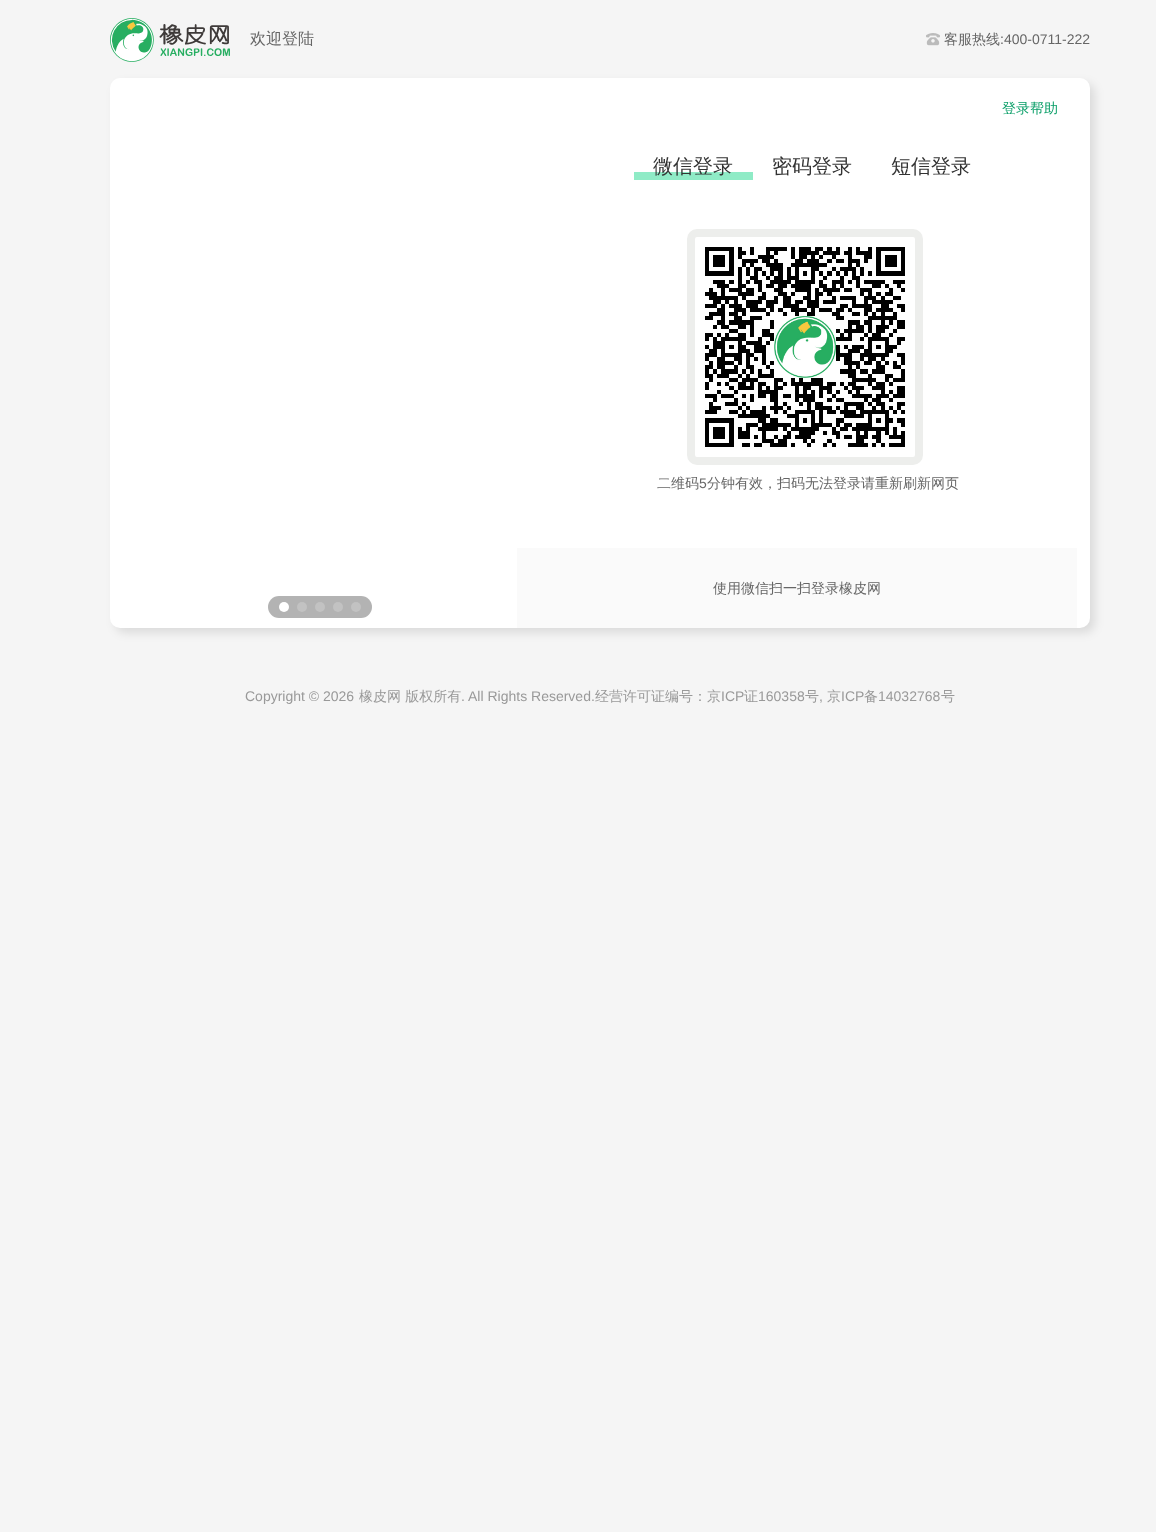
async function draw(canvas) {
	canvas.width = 1156;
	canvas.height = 1532;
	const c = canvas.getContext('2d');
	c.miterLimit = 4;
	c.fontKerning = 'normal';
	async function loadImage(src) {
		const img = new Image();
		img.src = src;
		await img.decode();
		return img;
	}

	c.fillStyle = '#f5f5f5';
	c.fillRect(0, 0, 1156, 1532);
	c.drawImage(await loadImage('img1.png'), 110, 18, 120, 44);
	c.font = '500 16px WenQuanYi Zen Hei';
	c.fillStyle = '#666';
	c.fillText('欢迎登陆', 250, 44);
	c.drawImage(await loadImage('img2.png'), 926, 33, 14, 13);
	c.font = '500 14px WenQuanYi Zen Hei';
	c.fillText('客服热线', 944, 44);
	c.font = '14px Liberation Sans';
	c.fillText(':400-0711-222', 1000, 44);
	c.fillStyle = '#0000001a';
	c.filter = 'blur(5px)';
	c.beginPath();
	c.roundRect(115, 83, 980, 550, 10);
	c.fill();
	c.filter = 'none';
	c.fillStyle = '#fff';
	c.beginPath();
	c.roundRect(110, 78, 980, 550, 10);
	c.fill();
	c.font = '500 14px WenQuanYi Zen Hei';
	c.fillStyle = '#089e67';
	c.fillText('登录帮助', 1002, 113);
	c.fillStyle = '#8febc6';
	c.fillRect(634, 172, 119, 8);
	c.font = '500 20px WenQuanYi Zen Hei';
	c.fillStyle = '#333';
	for (const [text, x, y] of [
		['微信登录', 653, 173],
		['密码登录', 772, 173],
		['短信登录', 891, 173],
	]) {
		c.fillText(text, x, y);
	}
	c.beginPath();
	c.roundRect(691, 233, 228, 228, 6);
	c.strokeStyle = '#edeeec';
	c.lineWidth = 8;
	c.stroke();
	c.drawImage(await loadImage('img3.png'), 705, 247, 200, 200);
	c.font = '500 14px WenQuanYi Zen Hei';
	c.fillStyle = '#666';
	c.fillText('二维码', 657, 488);
	c.font = '14px Liberation Sans';
	c.fillText('5', 699, 488);
	c.font = '500 14px WenQuanYi Zen Hei';
	c.fillText('分钟有效，扫码无法登录请重新刷新网页', 707, 488);
	c.fillStyle = '#fafafa';
	c.fillRect(517, 548, 560, 80);
	c.fillStyle = '#666';
	c.fillText('使用微信扫一扫登录橡皮网', 713, 593);
	c.fillStyle = '#b3b3b3';
	c.beginPath();
	c.roundRect(268, 596, 104, 22, 11);
	c.fill();
	c.fillStyle = '#fff';
	c.beginPath();
	c.arc(284, 607, 5, 0, 2 * Math.PI);
	c.fill();
	c.fillStyle = '#c2c2c2';
	c.beginPath();
	c.arc(302, 607, 5, 0, 2 * Math.PI);
	c.fill();
	c.beginPath();
	c.arc(320, 607, 5, 0, 2 * Math.PI);
	c.fill();
	c.beginPath();
	c.arc(338, 607, 5, 0, 2 * Math.PI);
	c.fill();
	c.beginPath();
	c.arc(356, 607, 5, 0, 2 * Math.PI);
	c.fill();
	c.font = '14px Liberation Sans';
	c.fillStyle = '#999';
	c.fillText('Copyright © 2026', 245, 701);
	c.font = '500 14px WenQuanYi Zen Hei';
	c.fillText('橡皮网 版权所有', 359, 701);
	c.font = '14px Liberation Sans';
	c.fillText('. All Rights Reserved.', 461, 701);
	c.font = '500 14px WenQuanYi Zen Hei';
	c.fillText('经营许可证编号：京', 595, 701);
	c.font = '14px Liberation Sans';
	c.fillText('ICP', 721, 701);
	c.font = '500 14px WenQuanYi Zen Hei';
	c.fillText('证', 744, 701);
	c.font = '14px Liberation Sans';
	c.fillText('160358', 758, 701);
	c.font = '500 14px WenQuanYi Zen Hei';
	c.fillText('号', 805, 701);
	c.font = '14px Liberation Sans';
	c.fillText(',', 819, 701);
	c.font = '500 14px WenQuanYi Zen Hei';
	c.fillText('京', 827, 701);
	c.font = '14px Liberation Sans';
	c.fillText('ICP', 841, 701);
	c.font = '500 14px WenQuanYi Zen Hei';
	c.fillText('备', 864, 701);
	c.font = '14px Liberation Sans';
	c.fillText('14032768', 878, 701);
	c.font = '500 14px WenQuanYi Zen Hei';
	c.fillText('号', 941, 701);
}

draw(document.querySelector('canvas'));
